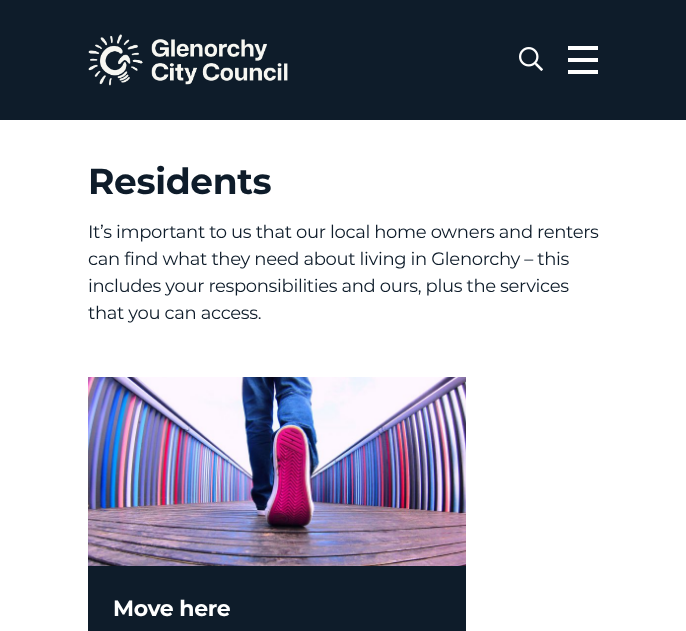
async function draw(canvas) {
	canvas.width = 686;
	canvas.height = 631;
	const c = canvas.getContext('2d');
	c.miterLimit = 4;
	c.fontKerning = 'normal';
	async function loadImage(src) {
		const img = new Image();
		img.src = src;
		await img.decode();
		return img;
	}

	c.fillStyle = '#fff';
	c.fillRect(0, 0, 686, 631);
	c.fillStyle = '#0e1c2a';
	c.fillRect(0, 0, 686, 120);
	c.drawImage(await loadImage('img1.png'), 88, 34, 200, 52);
	c.drawImage(await loadImage('img2.png'), 519, 47, 24, 24);
	for (const [x, y, w, h, color] of [
		[568, 58, 30, 4, '#fff'],
		[568, 46, 30, 4, '#fff'],
		[568, 70, 30, 4, '#fff'],
	]) {
		c.fillStyle = color;
		c.fillRect(x, y, w, h);
	}
	c.letterSpacing = '-0.35px';
	c.font = 'bold 36px Montserrat';
	c.fillStyle = '#0e1c2a';
	c.fillText('Residents', 88, 194);
	c.font = '18px Montserrat';
	for (const [text, x, y] of [
		['It’s important to us that our local home owners and renters', 88, 238],
		['can find what they need about living in Glenorchy – this', 88, 265],
		['includes your responsibilities and ours, plus the services', 88, 292],
		['that you can access.', 88, 319],
	]) {
		c.fillText(text, x, y);
	}
	c.drawImage(await loadImage('img3.png'), 88, 377, 378, 189);
	c.fillRect(88, 566, 378, 65);
	c.font = 'bold 22px Montserrat';
	c.fillStyle = '#fff';
	c.fillText('Move here', 113, 616);
}

draw(document.querySelector('canvas'));
